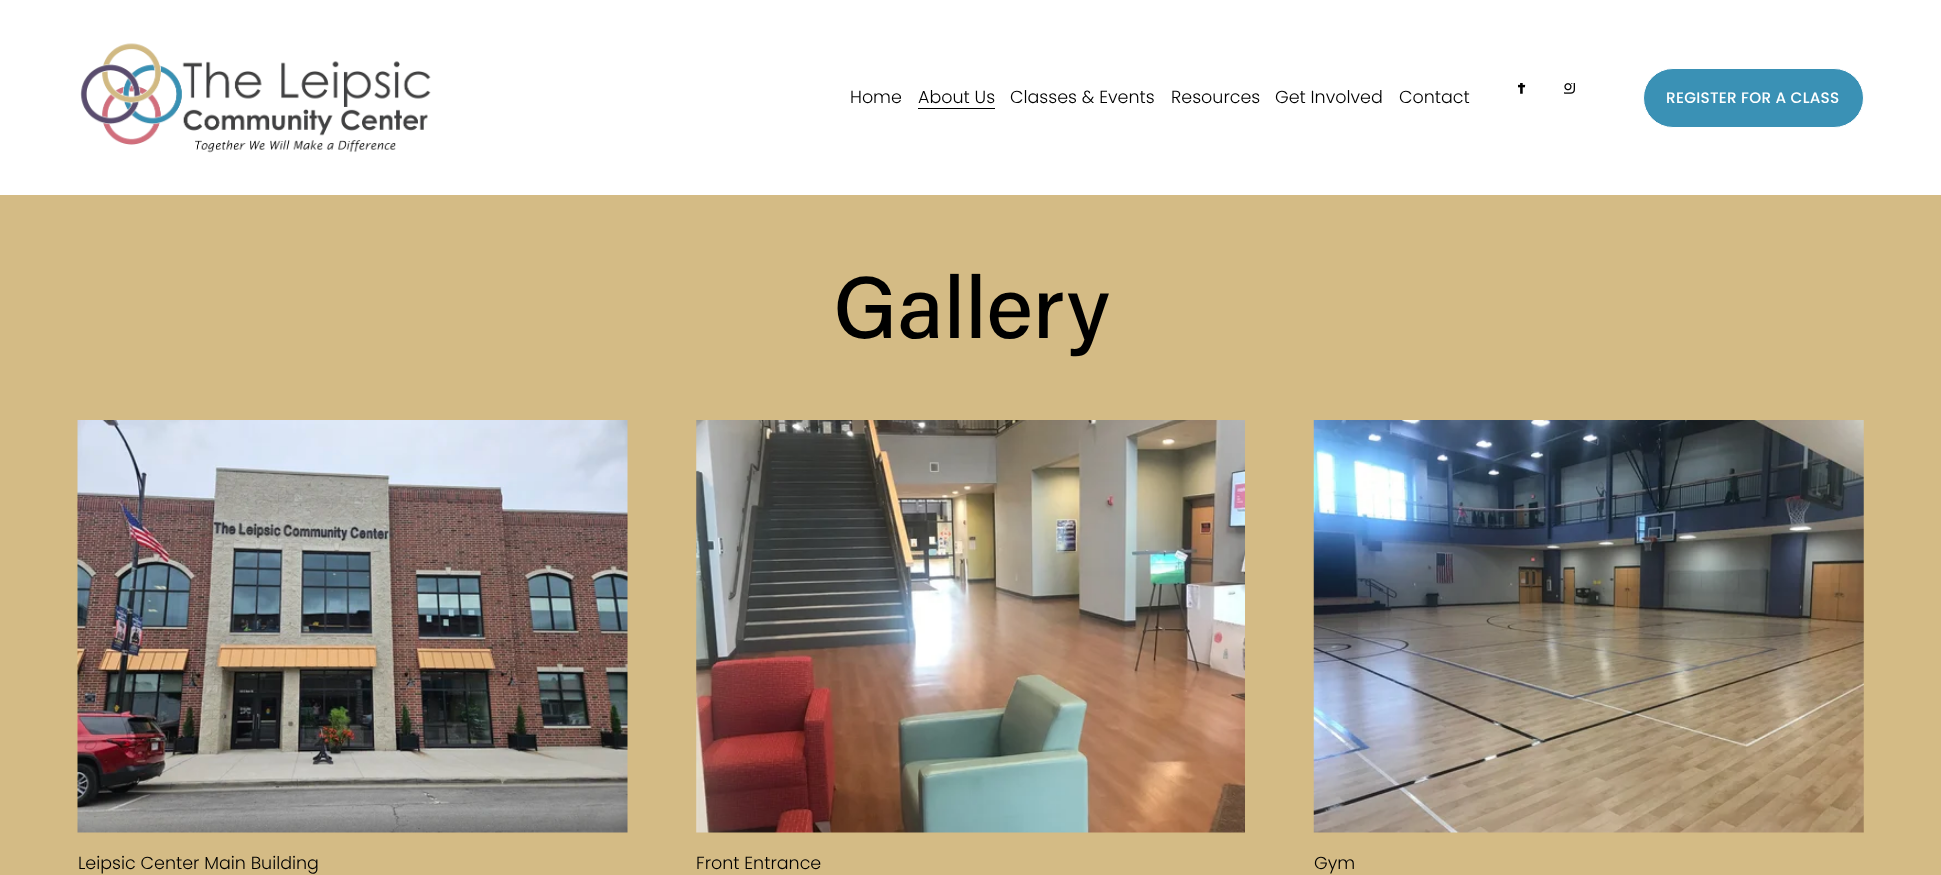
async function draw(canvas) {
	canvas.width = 1941;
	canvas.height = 875;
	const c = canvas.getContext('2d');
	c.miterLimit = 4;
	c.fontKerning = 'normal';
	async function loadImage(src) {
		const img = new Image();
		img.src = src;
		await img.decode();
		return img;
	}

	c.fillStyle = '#d4bb85';
	c.fillRect(0, 0, 1941, 875);
	c.fillStyle = '#fff';
	c.fillRect(0, 0, 1941, 195);
	c.drawImage(await loadImage('img1.png'), 80, 43, 351, 110);
	c.font = '300 17.5px Poppins';
	c.fillStyle = '#000';
	c.fillText('Home', 850, 103);
	c.fillRect(918, 108, 77, 1);
	for (const [text, x, y] of [
		['About Us', 918, 103],
		['Classes & Events', 1010, 103],
		['Resources', 1171, 103],
		['Get Involved', 1275, 103],
		['Contact', 1399, 103],
	]) {
		c.fillText(text, x, y);
	}
	c.drawImage(await loadImage('img2.png'), 1518, 83, 8, 11);
	c.drawImage(await loadImage('img3.png'), 1564, 83, 11, 11);
	c.fillStyle = '#3a91b5';
	c.beginPath();
	c.roundRect(1643.5, 68.5, 220, 59, 29.5);
	c.fill();
	c.strokeStyle = '#fff';
	c.stroke();
	c.letterSpacing = '0.25px';
	c.font = '500 15.25px Poppins';
	c.fillStyle = '#fff';
	c.fillText('REGISTER FOR A CLASS', 1666, 103);
	c.letterSpacing = '0px';
	c.font = '500 87.5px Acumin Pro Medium';
	c.fillStyle = '#000';
	c.fillText('Gallery', 833, 338);
	c.drawImage(await loadImage('img4.png'), 77, 420, 551, 413);
	c.font = '300 17.5px Poppins';
	c.fillText('Leipsic Center Main Building', 78, 869);
	c.drawImage(await loadImage('img5.png'), 696, 420, 549, 413);
	c.fillText('Front Entrance', 696, 869);
	c.drawImage(await loadImage('img6.png'), 1313, 420, 551, 413);
	c.fillText('Gym', 1314, 869);
}

draw(document.querySelector('canvas'));
